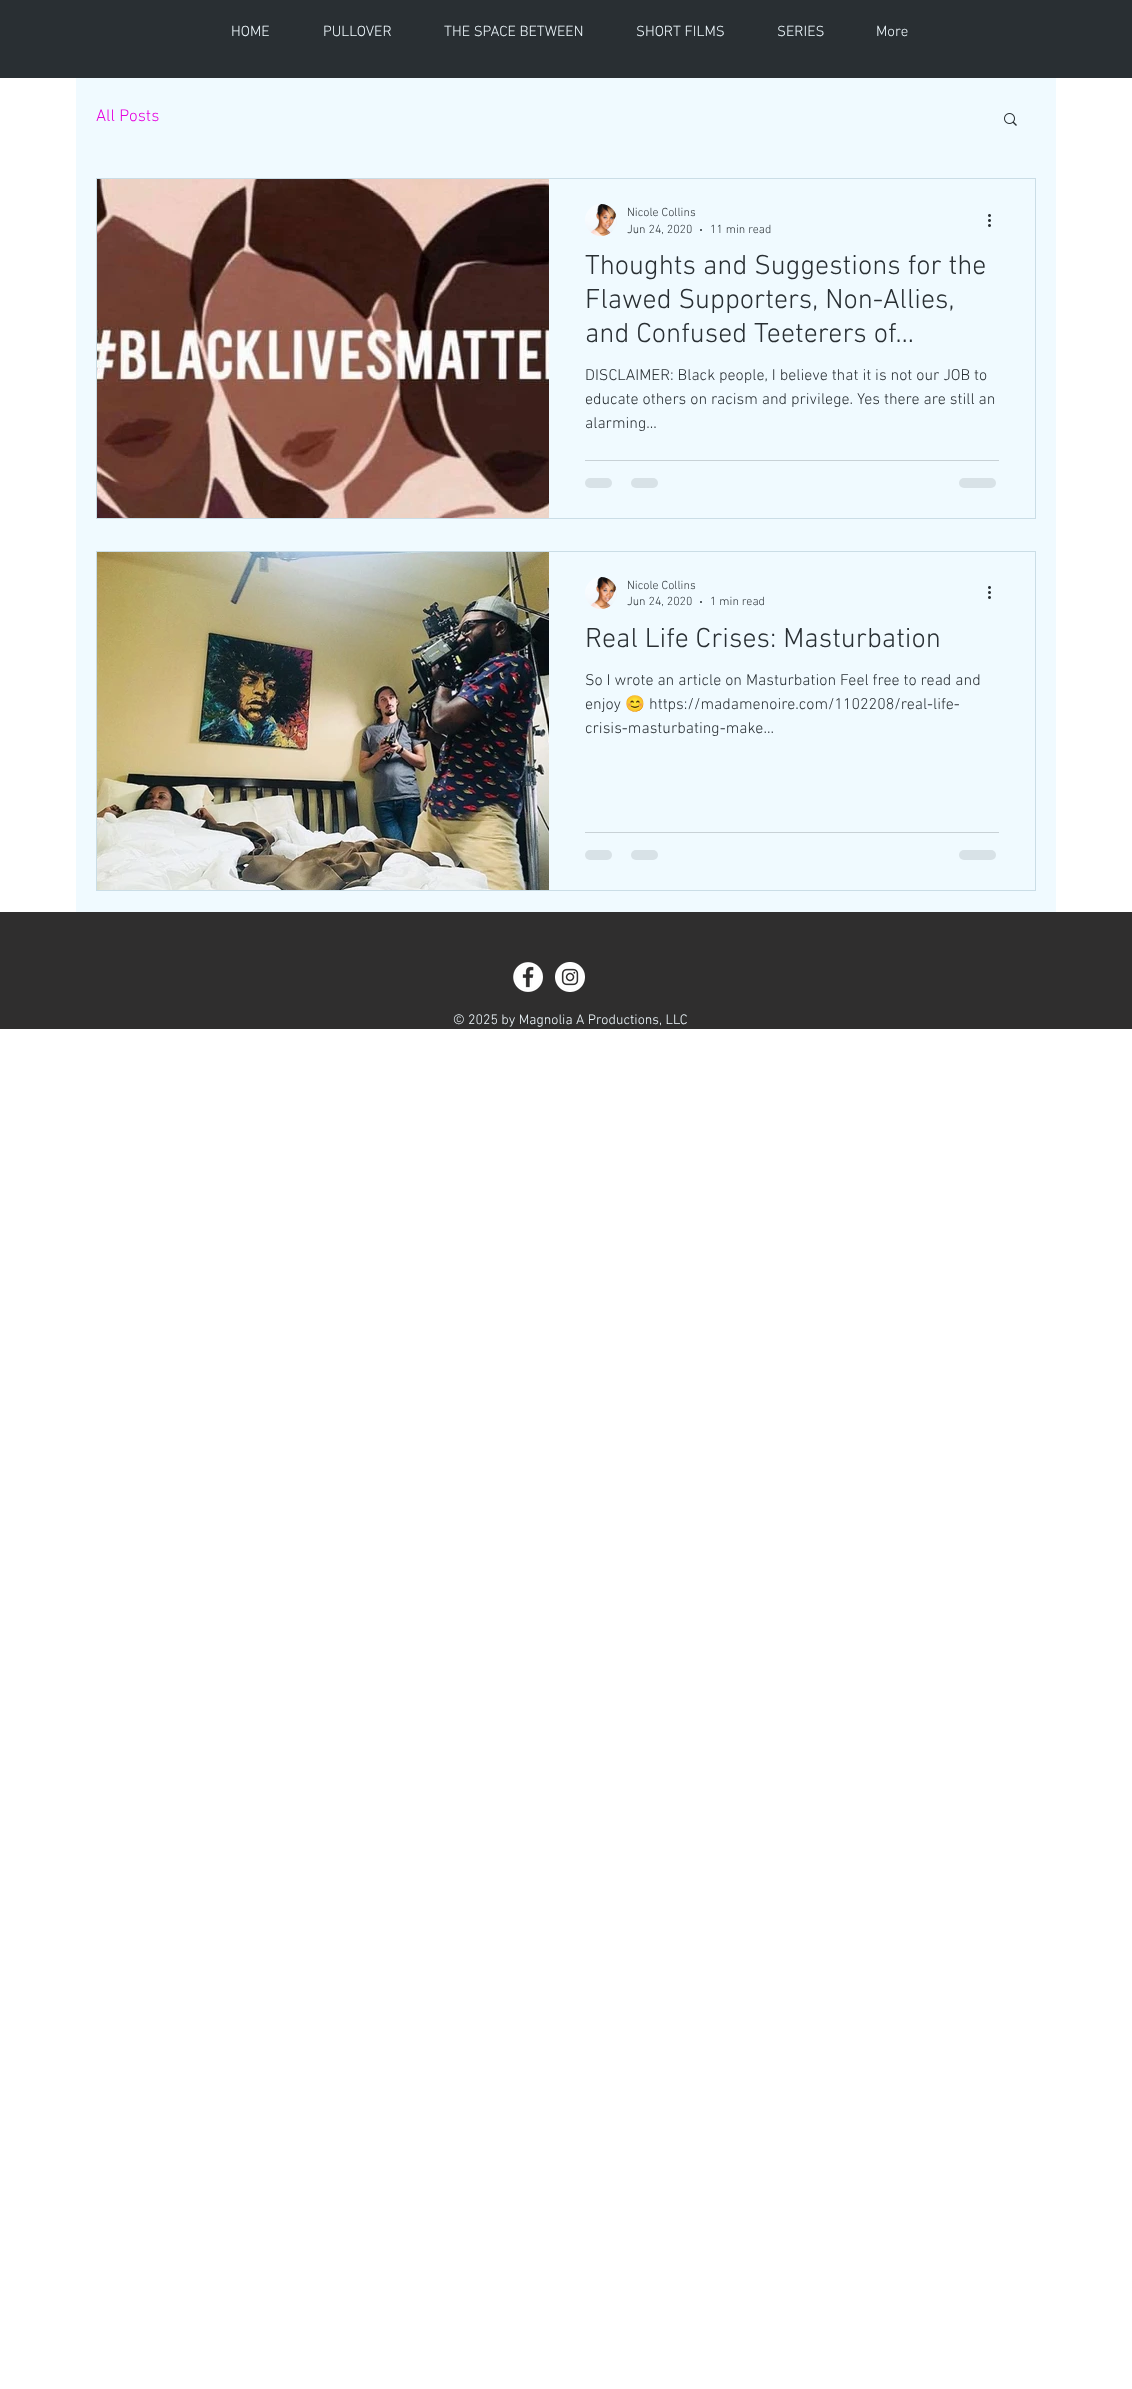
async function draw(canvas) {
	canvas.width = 1132;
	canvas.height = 2389;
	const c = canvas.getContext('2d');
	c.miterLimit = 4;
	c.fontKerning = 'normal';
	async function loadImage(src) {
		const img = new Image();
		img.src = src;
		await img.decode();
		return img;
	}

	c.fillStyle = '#fff';
	c.fillRect(0, 0, 1132, 2389);
	c.fillStyle = '#292f33';
	c.fillRect(0, 0, 1132, 78);
	c.font = '300 15px "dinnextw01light"';
	c.fillStyle = '#f0faff';
	for (const [text, x, y] of [
		['HOME', 231, 36],
		['PULLOVER', 323, 36],
		['THE SPACE BETWEEN', 444, 36],
		['SHORT FILMS', 636, 36],
		['SERIES', 777, 36],
		['More', 876, 36],
	]) {
		c.fillText(text, x, y);
	}
	c.fillRect(76, 78, 980, 834);
	c.font = '300 17px "dinnextw01light"';
	c.fillStyle = '#e600de';
	c.fillText('All Posts', 96, 121);
	c.drawImage(await loadImage('img1.png'), 1004, 113, 13, 13);
	c.strokeStyle = '#cadde6';
	c.strokeRect(96.5, 178.5, 939, 340);
	c.drawImage(await loadImage('img2.png'), 97, 179, 452, 339);
	c.drawImage(await loadImage('img3.png'), 585, 204, 32, 32);
	c.font = '300 12px "dinnextw01light"';
	c.fillStyle = '#292f33';
	c.fillText('Nicole Collins', 627, 216);
	c.fillText('Jun 24, 2020', 627, 233);
	c.beginPath();
	c.arc(701, 230, 1, 0, 2 * Math.PI);
	c.fill();
	c.fillText('11 min read', 710, 233);
	c.drawImage(await loadImage('img4.png'), 988, 214, 3, 13);
	c.font = '300 28px "dinnextw01light"';
	for (const [text, x, y] of [
		['Thoughts and Suggestions for the', 585, 274],
		['Flawed Supporters, Non-Allies,', 585, 308],
		['and Confused Teeterers of…', 585, 342],
	]) {
		c.fillText(text, x, y);
	}
	c.font = '300 16px "dinnextw01light"';
	for (const [text, x, y] of [
		['DISCLAIMER: Black people, I believe that it is not our JOB to', 585, 380],
		['educate others on racism and privilege. Yes there are still an', 585, 404],
		['alarming...', 585, 428],
	]) {
		c.fillText(text, x, y);
	}
	c.fillStyle = '#c8d1d6';
	c.fillRect(585, 460, 414, 1);
	c.fillStyle = '#d8e2e7';
	c.beginPath();
	c.roundRect(585, 478, 27, 10, 5);
	c.fill();
	c.beginPath();
	c.roundRect(631, 478, 27, 10, 5);
	c.fill();
	c.beginPath();
	c.roundRect(959, 478, 37, 10, 5);
	c.fill();
	c.strokeRect(96.5, 551.5, 939, 339);
	c.drawImage(await loadImage('img5.png'), 97, 552, 452, 338);
	c.drawImage(await loadImage('img3.png'), 585, 577, 32, 32);
	c.font = '300 12px "dinnextw01light"';
	c.fillStyle = '#292f33';
	c.fillText('Nicole Collins', 627, 589);
	c.fillText('Jun 24, 2020', 627, 605);
	c.beginPath();
	c.arc(701, 602, 1, 0, 2 * Math.PI);
	c.fill();
	c.fillText('1 min read', 710, 605);
	c.drawImage(await loadImage('img4.png'), 988, 586, 3, 13);
	c.font = '300 28px "dinnextw01light"';
	c.fillText('Real Life Crises: Masturbation', 585, 647);
	c.font = '300 16px "dinnextw01light"';
	c.fillText('So I wrote an article on Masturbation Feel free to read and', 585, 685);
	c.fillText('enjoy', 585, 709);
	c.font = '16px Noto Color Emoji';
	c.fillText('😊', 625, 709);
	c.font = '300 16px "dinnextw01light"';
	c.fillText('https://madamenoire.com/1102208/real-life-', 649, 709);
	c.fillText('crisis-masturbating-make...', 585, 733);
	c.fillStyle = '#c8d1d6';
	c.fillRect(585, 832, 414, 1);
	c.fillStyle = '#d8e2e7';
	c.beginPath();
	c.roundRect(585, 850, 27, 10, 5);
	c.fill();
	c.beginPath();
	c.roundRect(631, 850, 27, 10, 5);
	c.fill();
	c.beginPath();
	c.roundRect(959, 850, 37, 10, 5);
	c.fill();
	c.fillStyle = '#2f2e2e';
	c.fillRect(0, 912, 1132, 117);
	c.drawImage(await loadImage('img6.png'), 513, 962, 30, 30);
	c.drawImage(await loadImage('img7.png'), 555, 962, 30, 30);
	c.font = '300 14px "dinnextw01light"';
	c.fillStyle = '#f0faff';
	c.fillText('© 2025 by Magnolia A Productions, LLC', 453, 1024);
}

draw(document.querySelector('canvas'));
